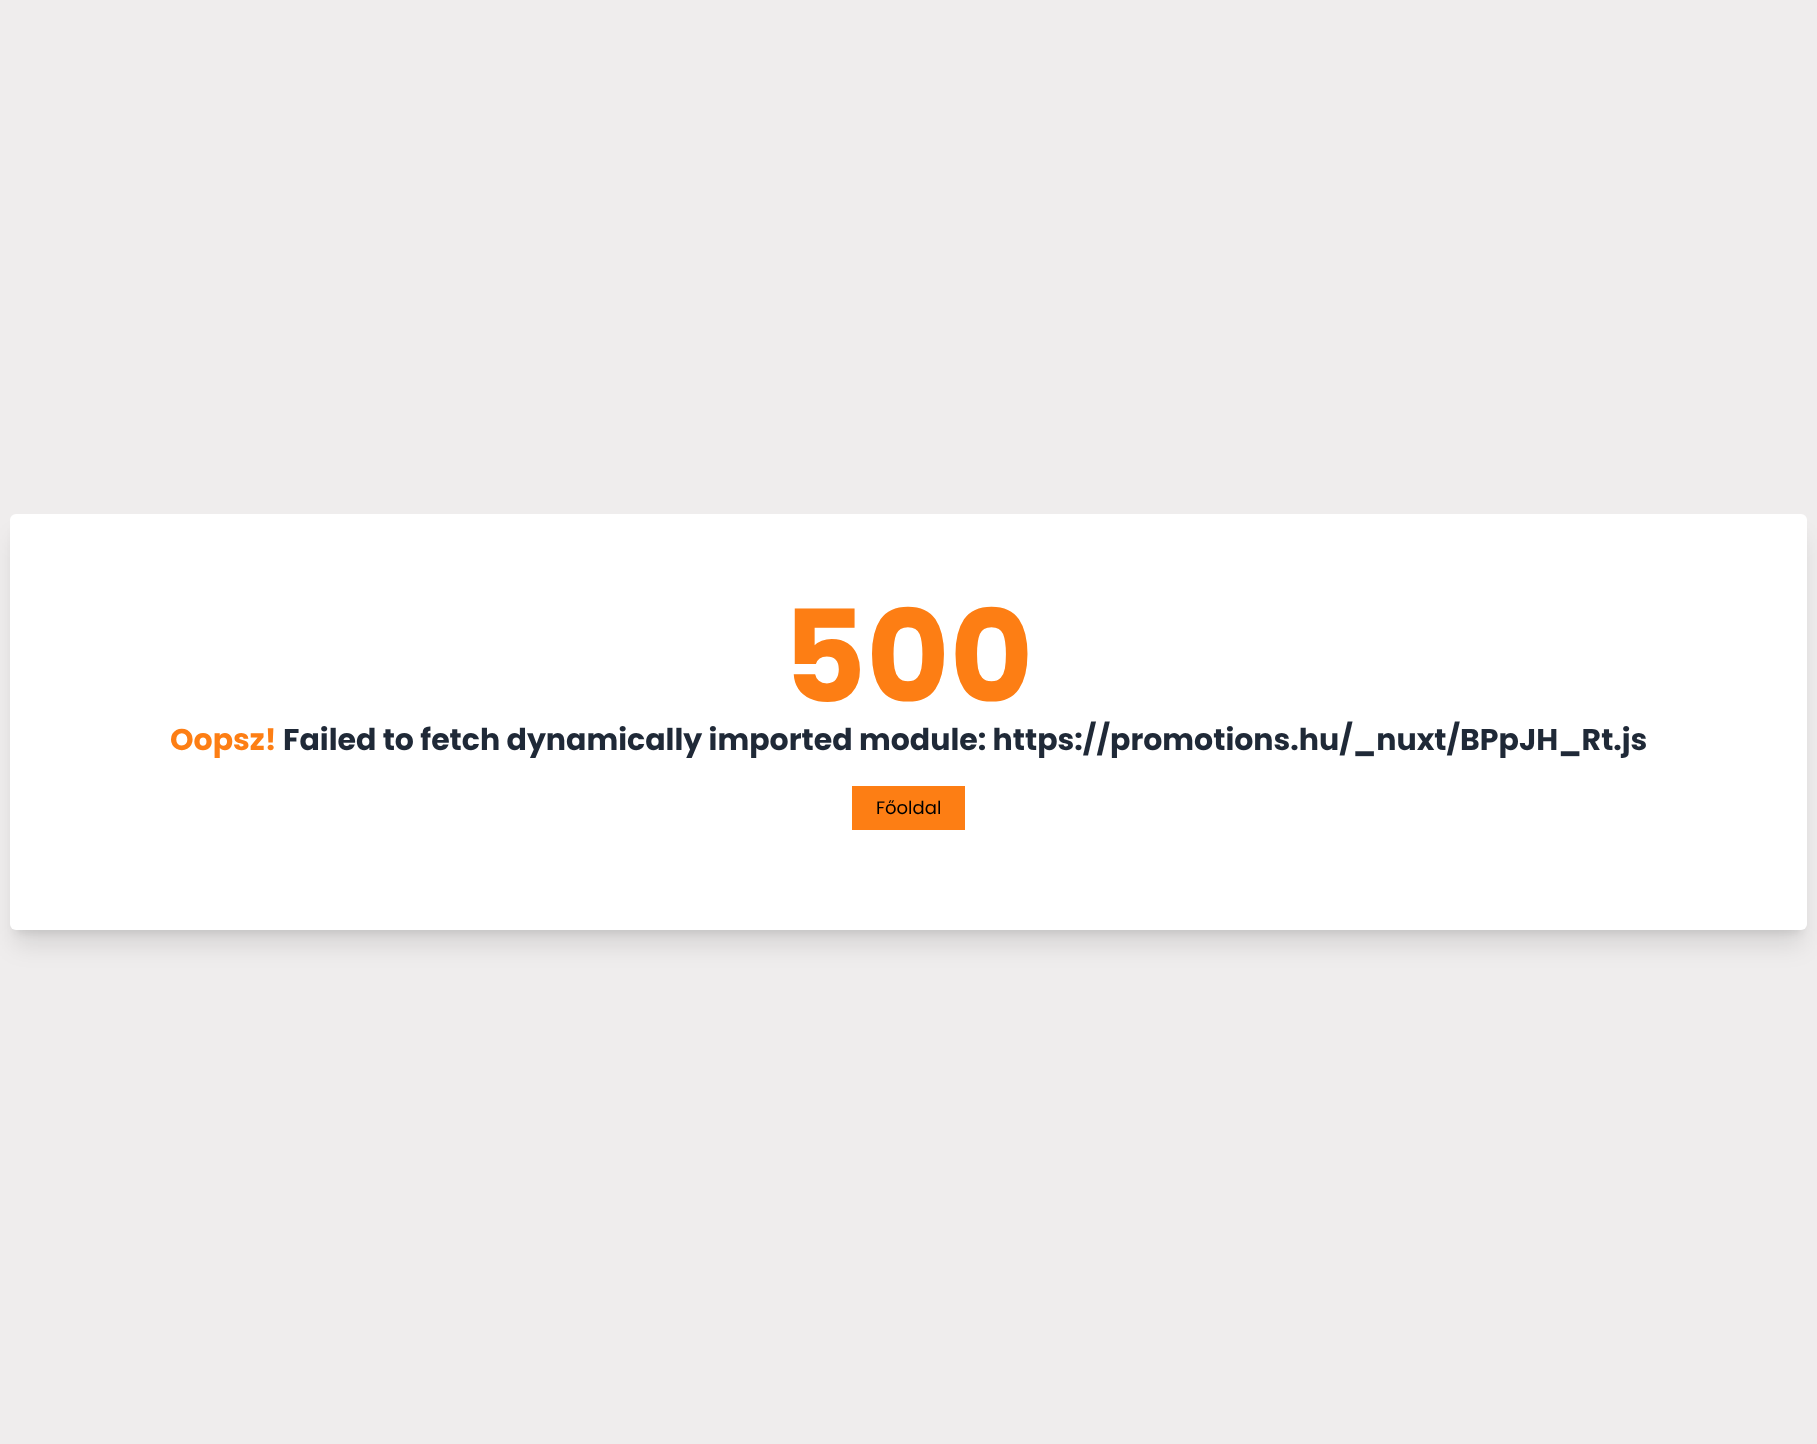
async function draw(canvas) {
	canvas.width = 1817;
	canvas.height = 1444;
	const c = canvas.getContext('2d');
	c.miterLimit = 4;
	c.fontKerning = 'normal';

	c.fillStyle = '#efeded';
	c.fillRect(0, 0, 1817, 1444);
	c.fillStyle = '#0000001a';
	c.filter = 'blur(5px)';
	c.beginPath();
	c.rect(16, 528, 1785, 404);
	c.fill();
	c.filter = 'none';
	c.filter = 'blur(12.5px)';
	c.beginPath();
	c.roundRect(15, 539, 1787, 406, 1);
	c.fill();
	c.filter = 'none';
	c.fillStyle = '#fff';
	c.beginPath();
	c.roundRect(10, 514, 1797, 416, 6);
	c.fill();
	c.font = 'bold 128px Poppins';
	c.fillStyle = '#fd7e14';
	c.fillText('500', 783, 702);
	c.font = 'bold 30px Poppins';
	c.fillText('Oopsz!', 170, 750);
	c.fillStyle = '#1f2937';
	c.fillText('Failed to fetch dynamically imported module: https://promotions.hu/_nuxt/BPpJH_Rt.js', 283, 750);
	c.fillStyle = '#fd7e14';
	c.fillRect(852, 786, 113, 44);
	c.font = '18px Poppins';
	c.fillStyle = '#000';
	c.fillText('Főoldal', 876, 814);
}

draw(document.querySelector('canvas'));
